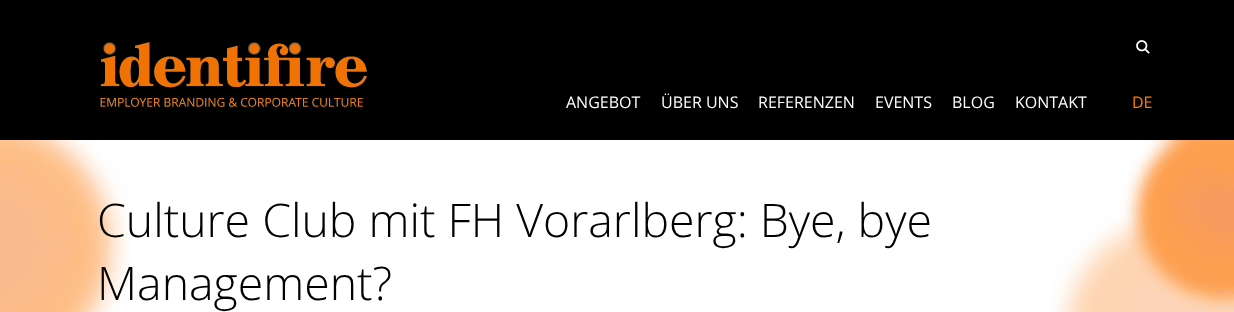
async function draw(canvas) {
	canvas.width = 1234;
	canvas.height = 312;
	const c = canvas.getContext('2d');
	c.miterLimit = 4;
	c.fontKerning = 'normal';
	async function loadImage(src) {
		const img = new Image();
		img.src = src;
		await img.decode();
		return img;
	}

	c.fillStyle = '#fff';
	c.fillRect(0, 0, 1234, 312);
	c.fillStyle = '#000';
	c.fillRect(0, 0, 1234, 140);
	c.drawImage(await loadImage('img1.png'), 100, 42, 267, 65);
	c.drawImage(await loadImage('img2.png'), 1136, 40, 14, 14);
	c.font = '16px Open Sans';
	c.fillStyle = '#fff';
	for (const [text, x, y] of [
		['ANGEBOT', 566, 108],
		['ÜBER UNS', 661, 108],
		['REFERENZEN', 758, 108],
		['EVENTS', 875, 108],
		['BLOG', 952, 108],
		['KONTAKT', 1015, 108],
	]) {
		c.fillText(text, x, y);
	}
	c.fillStyle = '#ff7c00';
	c.fillText('DE', 1132, 108);
	c.drawImage(await loadImage('img3.png'), 0, 140, 130, 172);
	c.font = '300 46.4px Open Sans';
	c.fillStyle = '#000';
	c.fillText('Culture Club mit FH Vorarlberg: Bye, bye', 97, 237);
	c.fillText('Management?', 97, 300);
	c.drawImage(await loadImage('img4.png'), 1051, 140, 183, 172);
}

draw(document.querySelector('canvas'));
